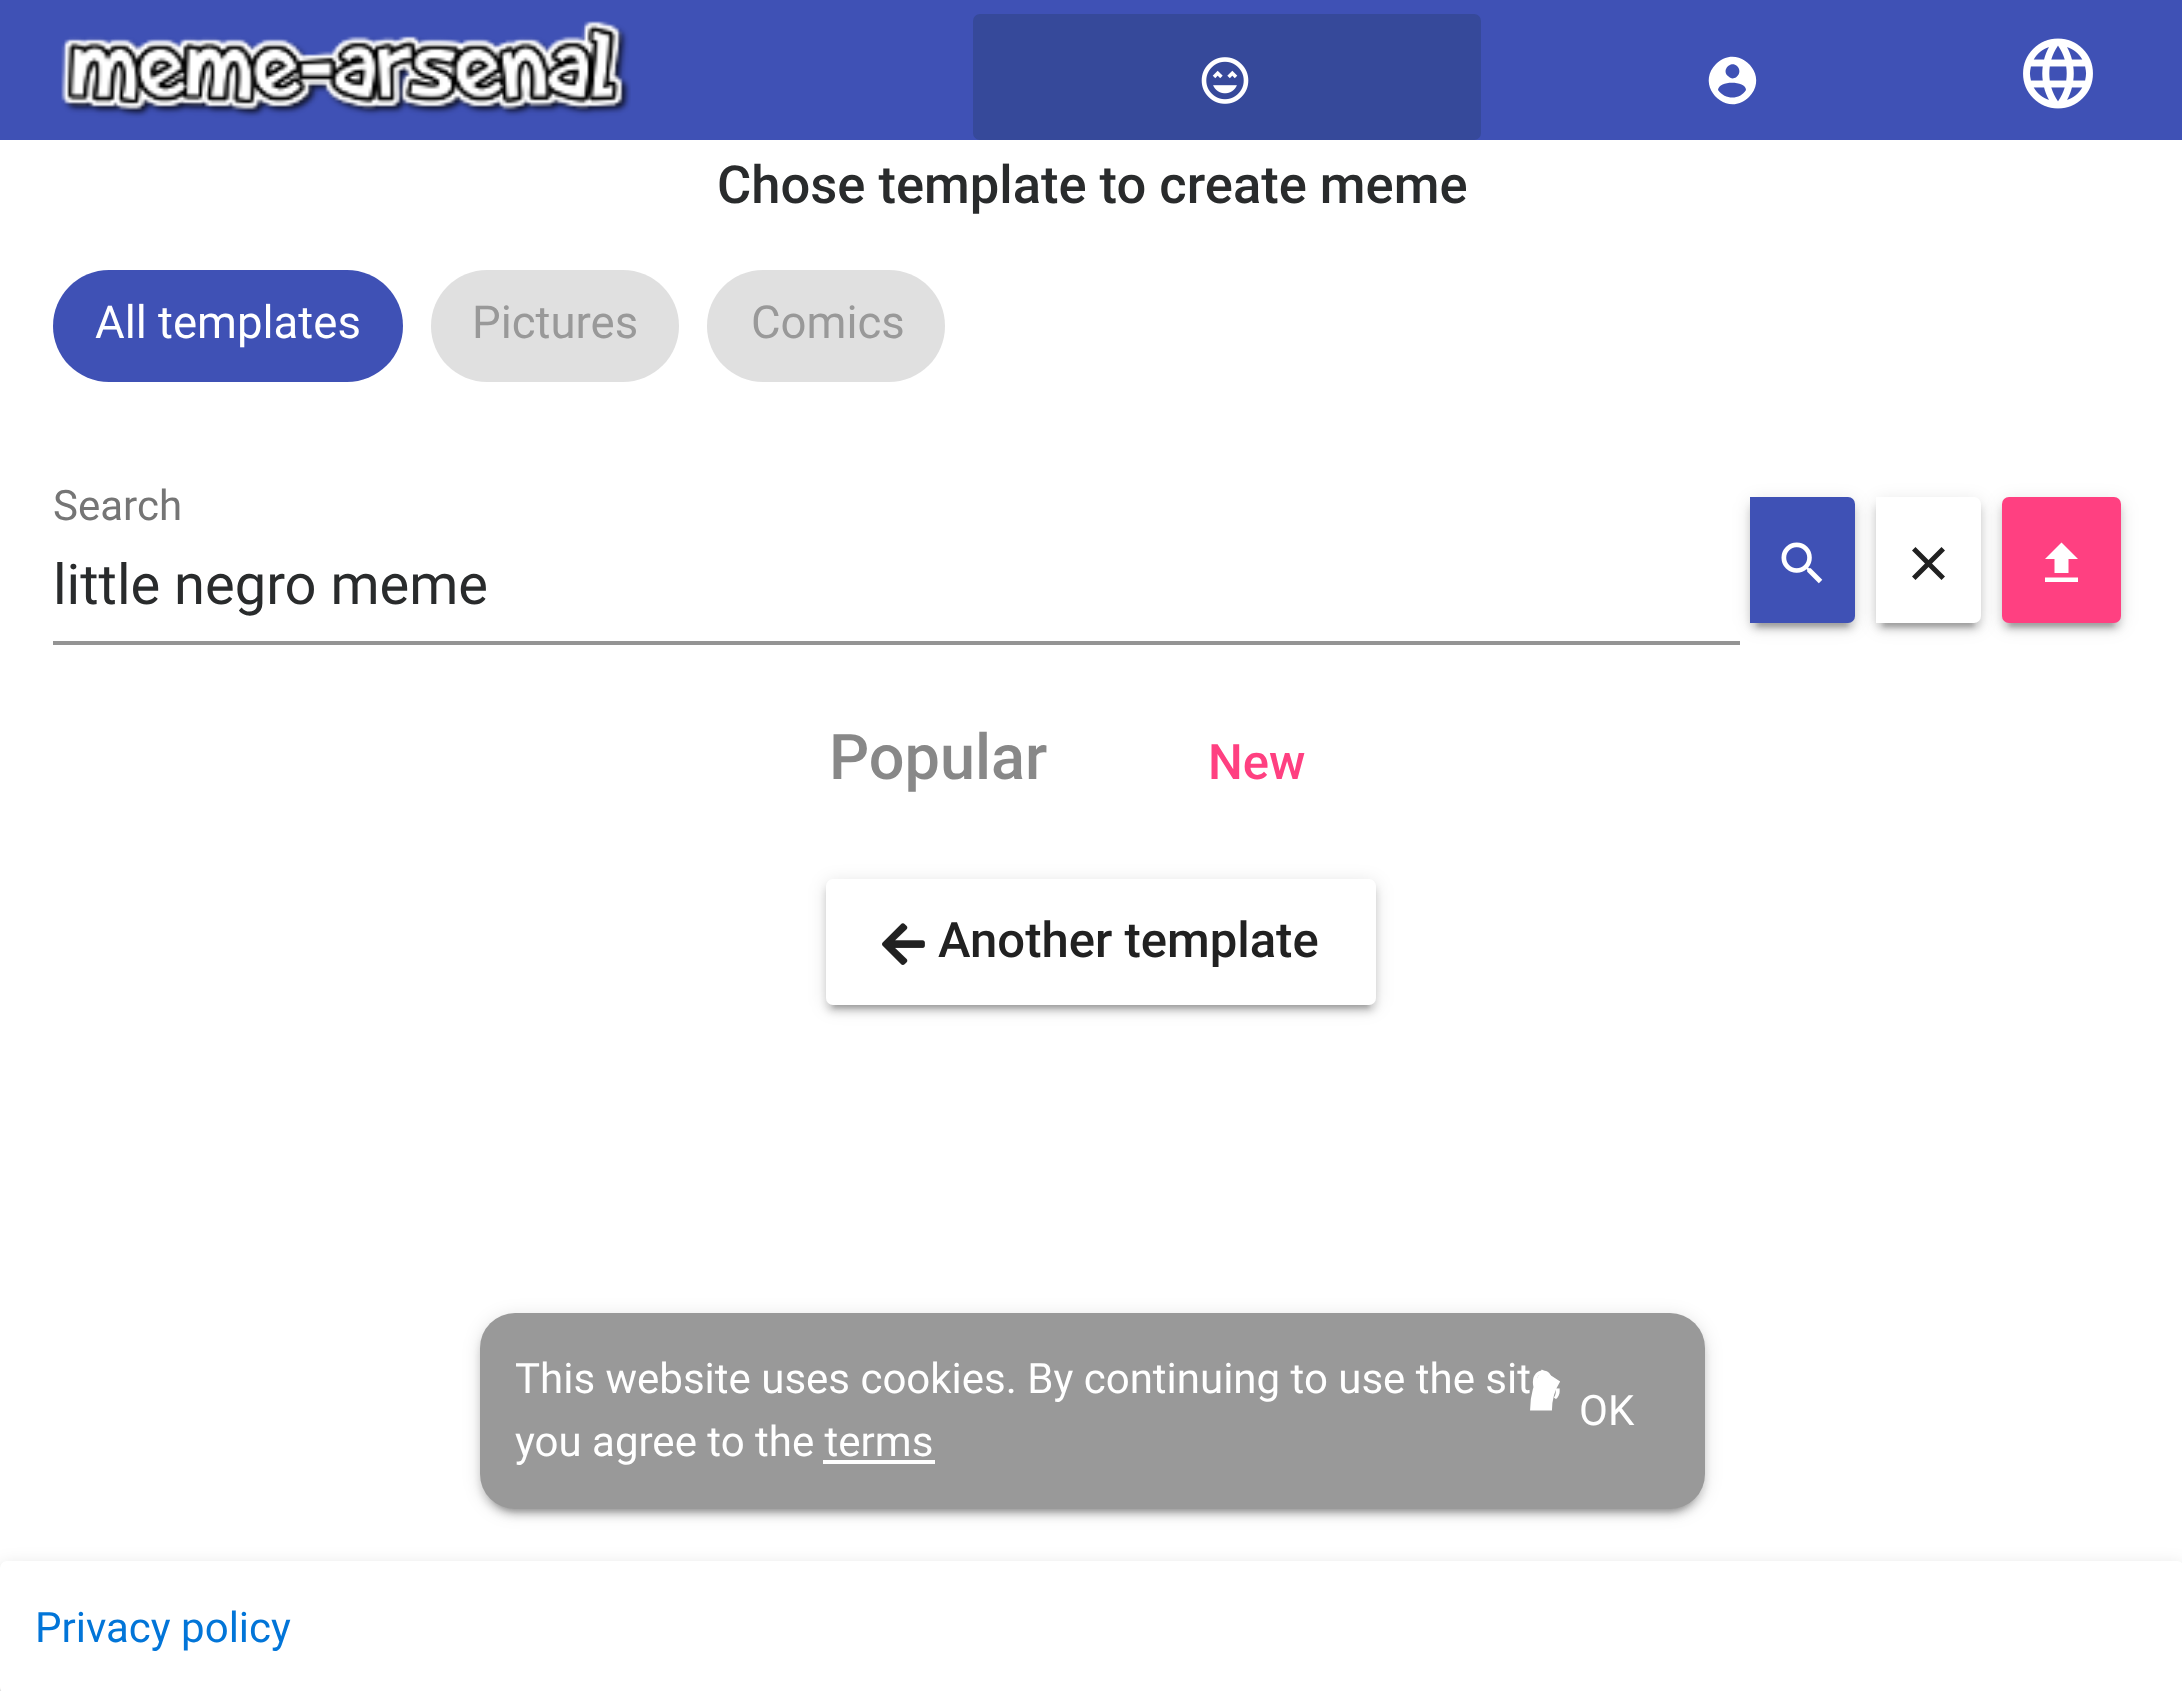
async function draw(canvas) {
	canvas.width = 2182;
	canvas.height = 1691;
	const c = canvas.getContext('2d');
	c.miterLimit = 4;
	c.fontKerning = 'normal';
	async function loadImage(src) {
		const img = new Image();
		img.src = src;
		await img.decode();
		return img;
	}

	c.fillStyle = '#fff';
	c.fillRect(0, 0, 2182, 1691);
	c.fillStyle = '#3f51b5';
	c.fillRect(0, 0, 2182, 140);
	c.drawImage(await loadImage('img1.png'), 61, 21, 570, 97);
	c.fillStyle = '#36499a';
	c.beginPath();
	c.roundRect(973, 14, 508, 126, 7);
	c.fill();
	c.drawImage(await loadImage('img2.png'), 1201, 57, 48, 47);
	c.fillStyle = '#fff';
	c.beginPath();
	c.moveTo(1718, 90);
	c.bezierCurveTo(1725, 100, 1740, 100, 1746, 90);
	c.bezierCurveTo(1746, 81, 1719, 80, 1718, 90);
	c.closePath();
	c.moveTo(1737, 66);
	c.bezierCurveTo(1731, 60, 1721, 70, 1728, 76);
	c.bezierCurveTo(1734, 83, 1744, 73, 1737, 66);
	c.closePath();
	c.moveTo(1716, 64);
	c.bezierCurveTo(1738, 42, 1771, 75, 1749, 97);
	c.bezierCurveTo(1727, 119, 1694, 86, 1716, 64);
	c.closePath();
	c.fill();
	c.drawImage(await loadImage('img3.png'), 2023, 38, 70, 71);
	c.font = '500 52.5px Roboto';
	c.fillStyle = '#292b2c';
	c.fillText('Chose template to create meme', 717, 203);
	c.fillStyle = '#3f51b5';
	c.beginPath();
	c.roundRect(53, 270, 350, 112, 56);
	c.fill();
	c.font = '45.5px Roboto';
	c.fillStyle = '#fff';
	c.fillText('All templates', 95, 338);
	c.fillStyle = '#e0e0e0';
	c.beginPath();
	c.roundRect(431, 270, 248, 112, 56);
	c.fill();
	c.fillStyle = '#999';
	c.fillText('Pictures', 472, 338);
	c.fillStyle = '#e0e0e0';
	c.beginPath();
	c.roundRect(707, 270, 238, 112, 56);
	c.fill();
	c.fillStyle = '#999';
	c.fillText('Comics', 751, 338);
	c.font = '42px Roboto';
	c.fillStyle = '#757575';
	c.fillText('Search', 53, 520);
	c.font = '56px Roboto';
	c.fillStyle = '#292b2c';
	c.fillText('little negro meme', 53, 604);
	c.fillStyle = '#949494';
	c.fillRect(53, 641, 1687, 4);
	c.fillStyle = '#0000001f';
	c.filter = 'blur(9px)';
	c.beginPath();
	c.roundRect(1750, 501, 105, 126, 7);
	c.fill();
	c.filter = 'none';
	c.fillStyle = '#00000024';
	c.filter = 'blur(3.5px)';
	c.beginPath();
	c.roundRect(1750, 504, 105, 126, 7);
	c.fill();
	c.filter = 'none';
	c.fillStyle = '#00000033';
	c.filter = 'blur(2px)';
	c.beginPath();
	c.rect(1757, 515, 91, 112);
	c.fill();
	c.filter = 'none';
	c.fillStyle = '#3f51b5';
	c.beginPath();
	c.roundRect(1750, 497, 105, 126, [0, 7, 7, 0]);
	c.fill();
	c.drawImage(await loadImage('img4.png'), 1781, 542, 42, 42);
	c.fillStyle = '#0000001f';
	c.filter = 'blur(9px)';
	c.beginPath();
	c.roundRect(1876, 501, 105, 126, 7);
	c.fill();
	c.filter = 'none';
	c.fillStyle = '#00000024';
	c.filter = 'blur(3.5px)';
	c.beginPath();
	c.roundRect(1876, 504, 105, 126, 7);
	c.fill();
	c.filter = 'none';
	c.fillStyle = '#00000033';
	c.filter = 'blur(2px)';
	c.beginPath();
	c.rect(1883, 515, 91, 112);
	c.fill();
	c.filter = 'none';
	c.fillStyle = '#fff';
	c.beginPath();
	c.roundRect(1876, 497, 105, 126, [0, 7, 7, 0]);
	c.fill();
	c.fillStyle = '#212121';
	c.beginPath();
	c.moveTo(1945, 550.5);
	c.lineTo(1932, 563.5);
	c.lineTo(1945, 576.5);
	c.lineTo(1941.5, 580);
	c.lineTo(1928.5, 567);
	c.lineTo(1915.5, 580);
	c.lineTo(1912, 576.5);
	c.lineTo(1925, 563.5);
	c.lineTo(1912, 550.5);
	c.lineTo(1915.5, 547);
	c.lineTo(1928.5, 560);
	c.lineTo(1941.5, 547);
	c.closePath();
	c.fill();
	c.fillStyle = '#0000001f';
	c.filter = 'blur(9px)';
	c.beginPath();
	c.roundRect(2002, 501, 119, 126, 7);
	c.fill();
	c.filter = 'none';
	c.fillStyle = '#00000024';
	c.filter = 'blur(3.5px)';
	c.beginPath();
	c.roundRect(2002, 504, 119, 126, 7);
	c.fill();
	c.filter = 'none';
	c.fillStyle = '#00000033';
	c.filter = 'blur(2px)';
	c.beginPath();
	c.rect(2009, 515, 105, 112);
	c.fill();
	c.filter = 'none';
	c.fillStyle = '#ff4081';
	c.beginPath();
	c.roundRect(2002, 497, 119, 126, 7);
	c.fill();
	c.fillStyle = '#fff';
	c.beginPath();
	c.moveTo(2045, 577.5);
	c.lineTo(2078, 577.5);
	c.lineTo(2078, 582);
	c.lineTo(2045, 582);
	c.closePath();
	c.moveTo(2054.5, 573);
	c.lineTo(2054.5, 559);
	c.lineTo(2045, 559);
	c.lineTo(2061.5, 542.5);
	c.lineTo(2078, 559);
	c.lineTo(2068.5, 559);
	c.lineTo(2068.5, 573);
	c.closePath();
	c.fill();
	c.font = '500 63px Roboto';
	c.fillStyle = '#888';
	c.fillText('Popular', 829, 779);
	c.font = '500 49px Roboto';
	c.fillStyle = '#ff4081';
	c.fillText('New', 1208, 779);
	c.fillStyle = '#0000001f';
	c.filter = 'blur(9px)';
	c.beginPath();
	c.roundRect(826, 882, 550, 126, 7);
	c.fill();
	c.filter = 'none';
	c.fillStyle = '#00000024';
	c.filter = 'blur(3.5px)';
	c.beginPath();
	c.roundRect(826, 886, 550, 126, 7);
	c.fill();
	c.filter = 'none';
	c.fillStyle = '#00000033';
	c.filter = 'blur(2px)';
	c.beginPath();
	c.rect(833, 896, 536, 112);
	c.fill();
	c.filter = 'none';
	c.fillStyle = '#fff';
	c.beginPath();
	c.roundRect(826, 879, 550, 126, 7);
	c.fill();
	c.drawImage(await loadImage('img5.png'), 882, 923, 43, 42);
	c.fillStyle = '#212121';
	c.fillText('Another template', 938, 957);
	c.fillStyle = '#0000001f';
	c.filter = 'blur(9px)';
	c.beginPath();
	c.roundRect(480, 1316, 1225, 196, 35);
	c.fill();
	c.filter = 'none';
	c.fillStyle = '#00000024';
	c.filter = 'blur(3.5px)';
	c.beginPath();
	c.roundRect(480, 1320, 1225, 196, 35);
	c.fill();
	c.filter = 'none';
	c.fillStyle = '#00000033';
	c.filter = 'blur(2px)';
	c.beginPath();
	c.roundRect(487, 1330, 1211, 182, 28);
	c.fill();
	c.filter = 'none';
	c.fillStyle = '#999';
	c.beginPath();
	c.roundRect(480, 1313, 1225, 196, 35);
	c.fill();
	c.font = '42px Roboto';
	c.fillStyle = '#fff';
	c.fillText('This website uses cookies. By continuing to use the site,', 515, 1393);
	c.fillText('you agree to the terms', 515, 1456);
	c.fillRect(823, 1460, 112, 4);
	c.beginPath();
	c.moveTo(1541, 1410.5);
	c.bezierCurveTo(1541, 1397.5, 1544.5, 1385.5, 1551, 1375.5);
	c.strokeStyle = '#fff';
	c.lineWidth = 21.9;
	c.stroke();
	c.fillText('OK', 1579, 1425);
	c.fillStyle = '#0000001f';
	c.filter = 'blur(9px)';
	c.beginPath();
	c.roundRect(0, 1565, 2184, 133, 7);
	c.fill();
	c.filter = 'none';
	c.fillStyle = '#00000024';
	c.filter = 'blur(3.5px)';
	c.beginPath();
	c.roundRect(0, 1568, 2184, 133, 7);
	c.fill();
	c.filter = 'none';
	c.fillStyle = '#fff';
	c.beginPath();
	c.roundRect(0, 1561, 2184, 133, 7);
	c.fill();
	c.fillStyle = '#0275d8';
	c.fillText('Privacy policy', 35, 1642);
}

draw(document.querySelector('canvas'));
